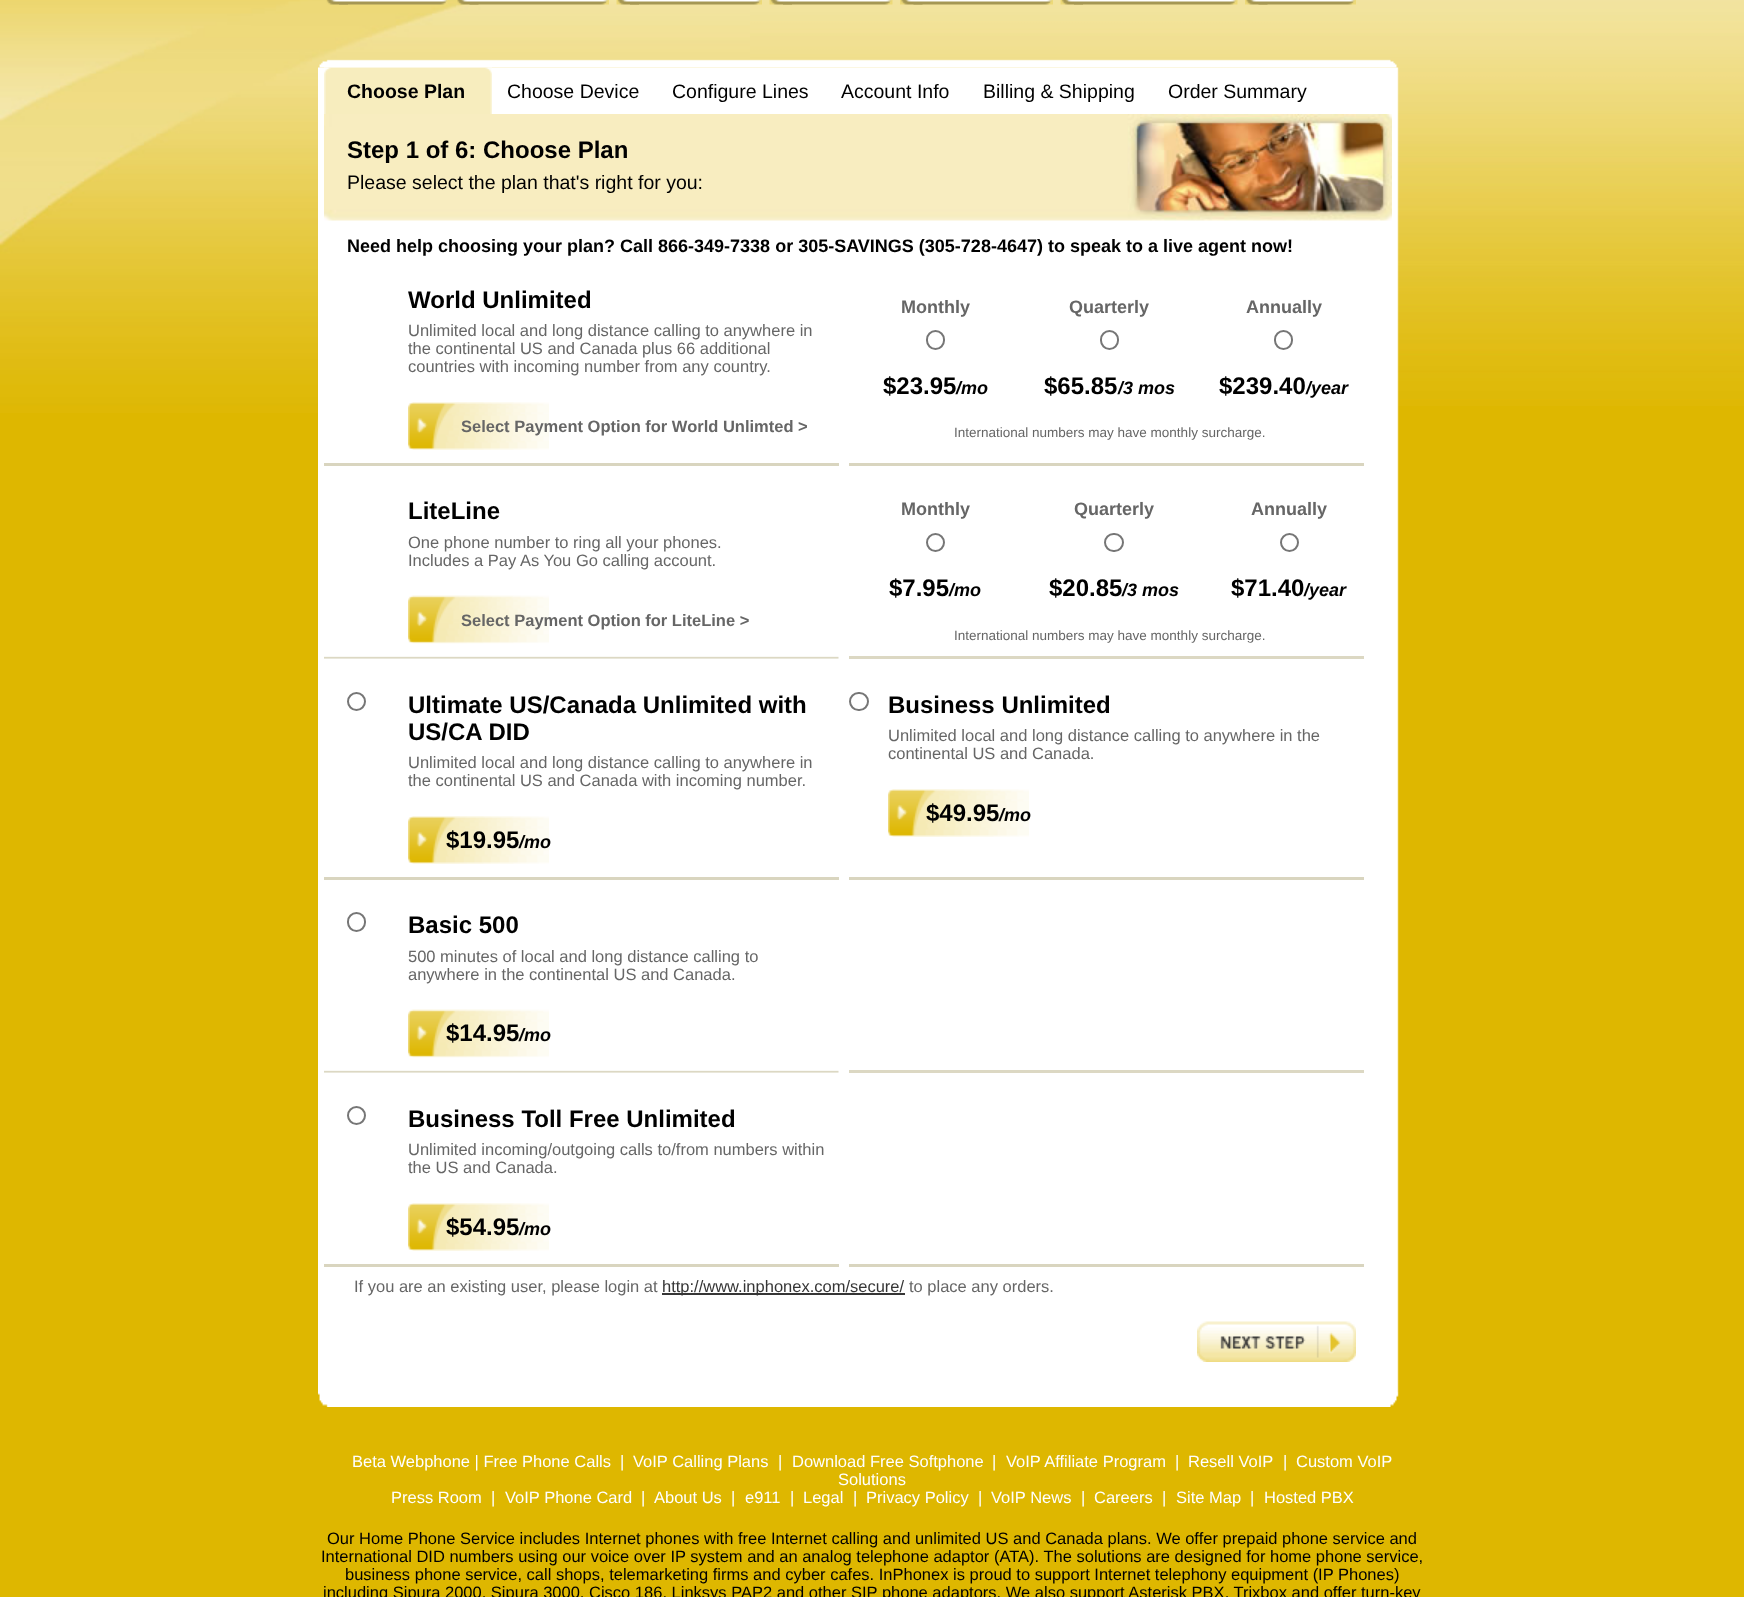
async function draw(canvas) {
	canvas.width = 1744;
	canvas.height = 1597;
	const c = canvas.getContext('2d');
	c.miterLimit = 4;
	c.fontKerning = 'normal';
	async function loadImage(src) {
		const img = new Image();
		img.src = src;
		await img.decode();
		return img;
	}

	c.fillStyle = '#deb700';
	c.fillRect(0, 0, 1744, 1597);
	c.drawImage(await loadImage('img1.png'), 750, 0, 994, 406);
	c.drawImage(await loadImage('img2.png'), 0, 0, 750, 413);
	c.drawImage(await loadImage('img3.png'), 326, 0, 22, 5);
	c.drawImage(await loadImage('img4.png'), 339, 0, 109, 5);
	c.drawImage(await loadImage('img5.png'), 456, 0, 23, 5);
	c.drawImage(await loadImage('img6.png'), 469, 0, 140, 5);
	c.drawImage(await loadImage('img7.png'), 616, 0, 23, 5);
	c.drawImage(await loadImage('img8.png'), 630, 0, 132, 5);
	c.drawImage(await loadImage('img9.png'), 769, 0, 23, 5);
	c.drawImage(await loadImage('img10.png'), 783, 0, 110, 5);
	c.drawImage(await loadImage('img11.png'), 900, 0, 23, 5);
	c.drawImage(await loadImage('img12.png'), 913, 0, 140, 5);
	c.drawImage(await loadImage('img13.png'), 1060, 0, 23, 5);
	c.drawImage(await loadImage('img14.png'), 1074, 0, 164, 5);
	c.drawImage(await loadImage('img15.png'), 1245, 0, 23, 5);
	c.drawImage(await loadImage('img16.png'), 1258, 0, 98, 5);
	c.drawImage(await loadImage('img18.png'), 318, 67, 1081, 1325);
	c.drawImage(await loadImage('img19.png'), 324, 67, 7, 47);
	c.drawImage(await loadImage('img20.png'), 485, 67, 7, 47);
	c.drawImage(await loadImage('img17.png'), 319, 59, 1078, 9);
	c.fillStyle = '#f7edbe';
	c.fillRect(331, 68, 154, 46);
	c.font = 'bold 19.5px Liberation Sans';
	c.fillStyle = '#000';
	c.fillText('Choose Plan', 347, 98);
	c.font = '19.5px Liberation Sans';
	for (const [text, x, y] of [
		['Choose Device', 507, 98],
		['Configure Lines', 672, 98],
		['Account Info', 841, 98],
		['Billing & Shipping', 983, 98],
		['Order Summary', 1168, 98],
	]) {
		c.fillText(text, x, y);
	}
	c.drawImage(await loadImage('img21.png'), 324, 114, 1068, 107);
	c.font = 'bold 24px Liberation Sans';
	c.fillText('Step 1 of 6: Choose Plan', 347, 158);
	c.font = '19.5px Liberation Sans';
	c.fillText('Please select the plan that\'s right for you:', 347, 189);
	c.font = 'bold 18px Liberation Sans';
	c.fillText('Need help choosing your plan? Call 866-349-7338 or 305-SAVINGS (305-728-4647) to speak to a live agent now!', 347, 252);
	c.font = 'bold 24px Liberation Sans';
	c.fillText('World Unlimited', 408, 308);
	c.font = '16.5px Liberation Sans';
	c.fillStyle = '#666';
	for (const [text, x, y] of [
		['Unlimited local and long distance calling to anywhere in', 408, 336],
		['the continental US and Canada plus 66 additional', 408, 354],
		['countries with incoming number from any country.', 408, 372],
	]) {
		c.fillText(text, x, y);
	}
	c.drawImage(await loadImage('img22.png'), 408, 402, 141, 48);
	c.font = 'bold 16.5px Liberation Sans';
	c.fillText('Select Payment Option for World Unlimted >', 461, 432);
	c.font = 'bold 18px Liberation Sans';
	for (const [text, x, y] of [
		['Monthly', 901, 313],
		['Quarterly', 1069, 313],
		['Annually', 1246, 313],
	]) {
		c.fillText(text, x, y);
	}
	c.beginPath();
	c.roundRect(927, 331, 17, 18, 8.5);
	c.strokeStyle = '#767676';
	c.lineWidth = 2;
	c.stroke();
	c.beginPath();
	c.roundRect(1101, 331, 17, 18, 8.5);
	c.stroke();
	c.beginPath();
	c.roundRect(1275, 331, 17, 18, 8.5);
	c.stroke();
	c.font = 'bold 24px Liberation Sans';
	c.fillStyle = '#000';
	c.fillText('$23.95', 883, 394);
	c.font = 'italic bold 18px Liberation Sans';
	c.fillText('/mo', 956, 394);
	c.font = 'bold 24px Liberation Sans';
	c.fillText('$65.85', 1044, 394);
	c.font = 'italic bold 18px Liberation Sans';
	c.fillText('/3 mos', 1118, 394);
	c.font = 'bold 24px Liberation Sans';
	c.fillText('$239.40', 1219, 394);
	c.font = 'italic bold 18px Liberation Sans';
	c.fillText('/year', 1306, 394);
	c.font = '13.5px Liberation Sans';
	c.fillStyle = '#666';
	c.fillText('International numbers may have monthly surcharge.', 954, 437);
	c.fillStyle = '#d9d5bf';
	c.fillRect(324, 463, 515, 3);
	c.fillRect(849, 463, 515, 3);
	c.font = 'bold 24px Liberation Sans';
	c.fillStyle = '#000';
	c.fillText('LiteLine', 408, 519);
	c.font = '16.5px Liberation Sans';
	c.fillStyle = '#666';
	c.fillText('One phone number to ring all your phones.', 408, 548);
	c.fillText('Includes a Pay As You Go calling account.', 408, 566);
	c.drawImage(await loadImage('img23.png'), 408, 595, 141, 49);
	c.font = 'bold 16.5px Liberation Sans';
	c.fillText('Select Payment Option for LiteLine >', 461, 626);
	c.font = 'bold 18px Liberation Sans';
	for (const [text, x, y] of [
		['Monthly', 901, 515],
		['Quarterly', 1074, 515],
		['Annually', 1251, 515],
	]) {
		c.fillText(text, x, y);
	}
	c.beginPath();
	c.arc(935.5, 542.5, 8.5, 0, 2 * Math.PI);
	c.stroke();
	c.beginPath();
	c.roundRect(1105, 534, 18, 17, 8.5);
	c.stroke();
	c.beginPath();
	c.arc(1289.5, 542.5, 8.5, 0, 2 * Math.PI);
	c.stroke();
	c.font = 'bold 24px Liberation Sans';
	c.fillStyle = '#000';
	c.fillText('$7.95', 889, 596);
	c.font = 'italic bold 18px Liberation Sans';
	c.fillText('/mo', 949, 596);
	c.font = 'bold 24px Liberation Sans';
	c.fillText('$20.85', 1049, 596);
	c.font = 'italic bold 18px Liberation Sans';
	c.fillText('/3 mos', 1122, 596);
	c.font = 'bold 24px Liberation Sans';
	c.fillText('$71.40', 1231, 596);
	c.font = 'italic bold 18px Liberation Sans';
	c.fillText('/year', 1304, 596);
	c.font = '13.5px Liberation Sans';
	c.fillStyle = '#666';
	c.fillText('International numbers may have monthly surcharge.', 954, 640);
	c.drawImage(await loadImage('img24.png'), 324, 643, 515, 16);
	c.fillStyle = '#dcd8c3';
	c.fillRect(849, 656, 515, 3);
	c.beginPath();
	c.arc(356.5, 701.5, 8.5, 0, 2 * Math.PI);
	c.stroke();
	c.font = 'bold 24px Liberation Sans';
	c.fillStyle = '#000';
	c.fillText('Ultimate US/Canada Unlimited with', 408, 713);
	c.fillText('US/CA DID', 408, 740);
	c.font = '16.5px Liberation Sans';
	c.fillStyle = '#666';
	c.fillText('Unlimited local and long distance calling to anywhere in', 408, 768);
	c.fillText('the continental US and Canada with incoming number.', 408, 786);
	c.drawImage(await loadImage('img22.png'), 408, 816, 141, 48);
	c.font = 'bold 24px Liberation Sans';
	c.fillStyle = '#000';
	c.fillText('$19.95', 446, 848);
	c.font = 'italic bold 18px Liberation Sans';
	c.fillText('/mo', 519, 848);
	c.beginPath();
	c.roundRect(850, 693, 18, 17, 8.5);
	c.stroke();
	c.font = 'bold 24px Liberation Sans';
	c.fillText('Business Unlimited', 888, 713);
	c.font = '16.5px Liberation Sans';
	c.fillStyle = '#666';
	c.fillText('Unlimited local and long distance calling to anywhere in the', 888, 741);
	c.fillText('continental US and Canada.', 888, 759);
	c.drawImage(await loadImage('img25.png'), 888, 789, 141, 48);
	c.font = 'bold 24px Liberation Sans';
	c.fillStyle = '#000';
	c.fillText('$49.95', 926, 821);
	c.font = 'italic bold 18px Liberation Sans';
	c.fillText('/mo', 999, 821);
	c.fillStyle = '#d9d5bf';
	c.fillRect(324, 877, 515, 3);
	c.fillRect(849, 877, 515, 3);
	c.beginPath();
	c.roundRect(348, 913, 17, 18, 8.5);
	c.stroke();
	c.font = 'bold 24px Liberation Sans';
	c.fillStyle = '#000';
	c.fillText('Basic 500', 408, 933);
	c.font = '16.5px Liberation Sans';
	c.fillStyle = '#666';
	c.fillText('500 minutes of local and long distance calling to', 408, 962);
	c.fillText('anywhere in the continental US and Canada.', 408, 980);
	c.drawImage(await loadImage('img23.png'), 408, 1009, 141, 49);
	c.font = 'bold 24px Liberation Sans';
	c.fillStyle = '#000';
	c.fillText('$14.95', 446, 1041);
	c.font = 'italic bold 18px Liberation Sans';
	c.fillText('/mo', 519, 1041);
	c.drawImage(await loadImage('img24.png'), 324, 1057, 515, 16);
	c.fillStyle = '#dcd8c3';
	c.fillRect(849, 1070, 515, 3);
	c.beginPath();
	c.arc(356.5, 1115.5, 8.5, 0, 2 * Math.PI);
	c.stroke();
	c.font = 'bold 24px Liberation Sans';
	c.fillStyle = '#000';
	c.fillText('Business Toll Free Unlimited', 408, 1127);
	c.font = '16.5px Liberation Sans';
	c.fillStyle = '#666';
	c.fillText('Unlimited incoming/outgoing calls to/from numbers within', 408, 1155);
	c.fillText('the US and Canada.', 408, 1173);
	c.drawImage(await loadImage('img22.png'), 408, 1203, 141, 48);
	c.font = 'bold 24px Liberation Sans';
	c.fillStyle = '#000';
	c.fillText('$54.95', 446, 1235);
	c.font = 'italic bold 18px Liberation Sans';
	c.fillText('/mo', 519, 1235);
	c.fillStyle = '#d9d5bf';
	c.fillRect(324, 1264, 515, 3);
	c.fillRect(849, 1264, 515, 3);
	c.font = '16.5px Liberation Sans';
	c.fillStyle = '#666';
	c.fillText('If you are an existing user, please login at', 354, 1292);
	c.fillStyle = '#363636';
	c.fillRect(662, 1293, 243, 2);
	c.fillText('http://www.inphonex.com/secure/', 662, 1292);
	c.fillStyle = '#666';
	c.fillText('to place any orders.', 909, 1292);
	c.drawImage(await loadImage('img26.png'), 1197, 1321, 159, 41);
	c.drawImage(await loadImage('img27.png'), 318, 1392, 1081, 15);
	c.fillStyle = '#fff';
	for (const [text, x, y] of [
		['Beta Webphone | Free Phone Calls', 352, 1467],
		['|', 620, 1467],
		['VoIP Calling Plans', 633, 1467],
		['|', 778, 1467],
		['Download Free Softphone', 792, 1467],
		['|', 992, 1467],
		['VoIP Affiliate Program', 1006, 1467],
		['|', 1175, 1467],
		['Resell VoIP', 1188, 1467],
		['|', 1283, 1467],
		['Custom VoIP', 1296, 1467],
		['Solutions', 838, 1485],
		['Press Room', 391, 1503],
		['|', 491, 1503],
		['VoIP Phone Card', 505, 1503],
		['|', 641, 1503],
		['About Us', 654, 1503],
		['|', 731, 1503],
		['e911', 745, 1503],
		['|', 790, 1503],
		['Legal', 803, 1503],
		['|', 853, 1503],
		['Privacy Policy', 866, 1503],
		['|', 978, 1503],
		['VoIP News', 991, 1503],
		['|', 1081, 1503],
		['Careers', 1094, 1503],
		['|', 1162, 1503],
		['Site Map', 1176, 1503],
		['|', 1250, 1503],
		['Hosted PBX', 1264, 1503],
	]) {
		c.fillText(text, x, y);
	}
	c.fillStyle = '#000';
	for (const [text, x, y] of [
		['Our Home Phone Service includes Internet phones with free Internet calling and unlimited US and Canada plans. We offer prepaid phone service and', 327, 1544],
		['International DID numbers using our voice over IP system and an analog telephone adaptor (ATA). The solutions are designed for home phone service,', 321, 1562],
		['business phone service, call shops, telemarketing firms and cyber cafes. InPhonex is proud to support Internet telephony equipment (IP Phones)', 345, 1580],
		['including Sipura 2000, Sipura 3000, Cisco 186, Linksys PAP2 and other SIP phone adaptors. We also support Asterisk PBX, Trixbox and offer turn-key', 323, 1598],
	]) {
		c.fillText(text, x, y);
	}
}

draw(document.querySelector('canvas'));
